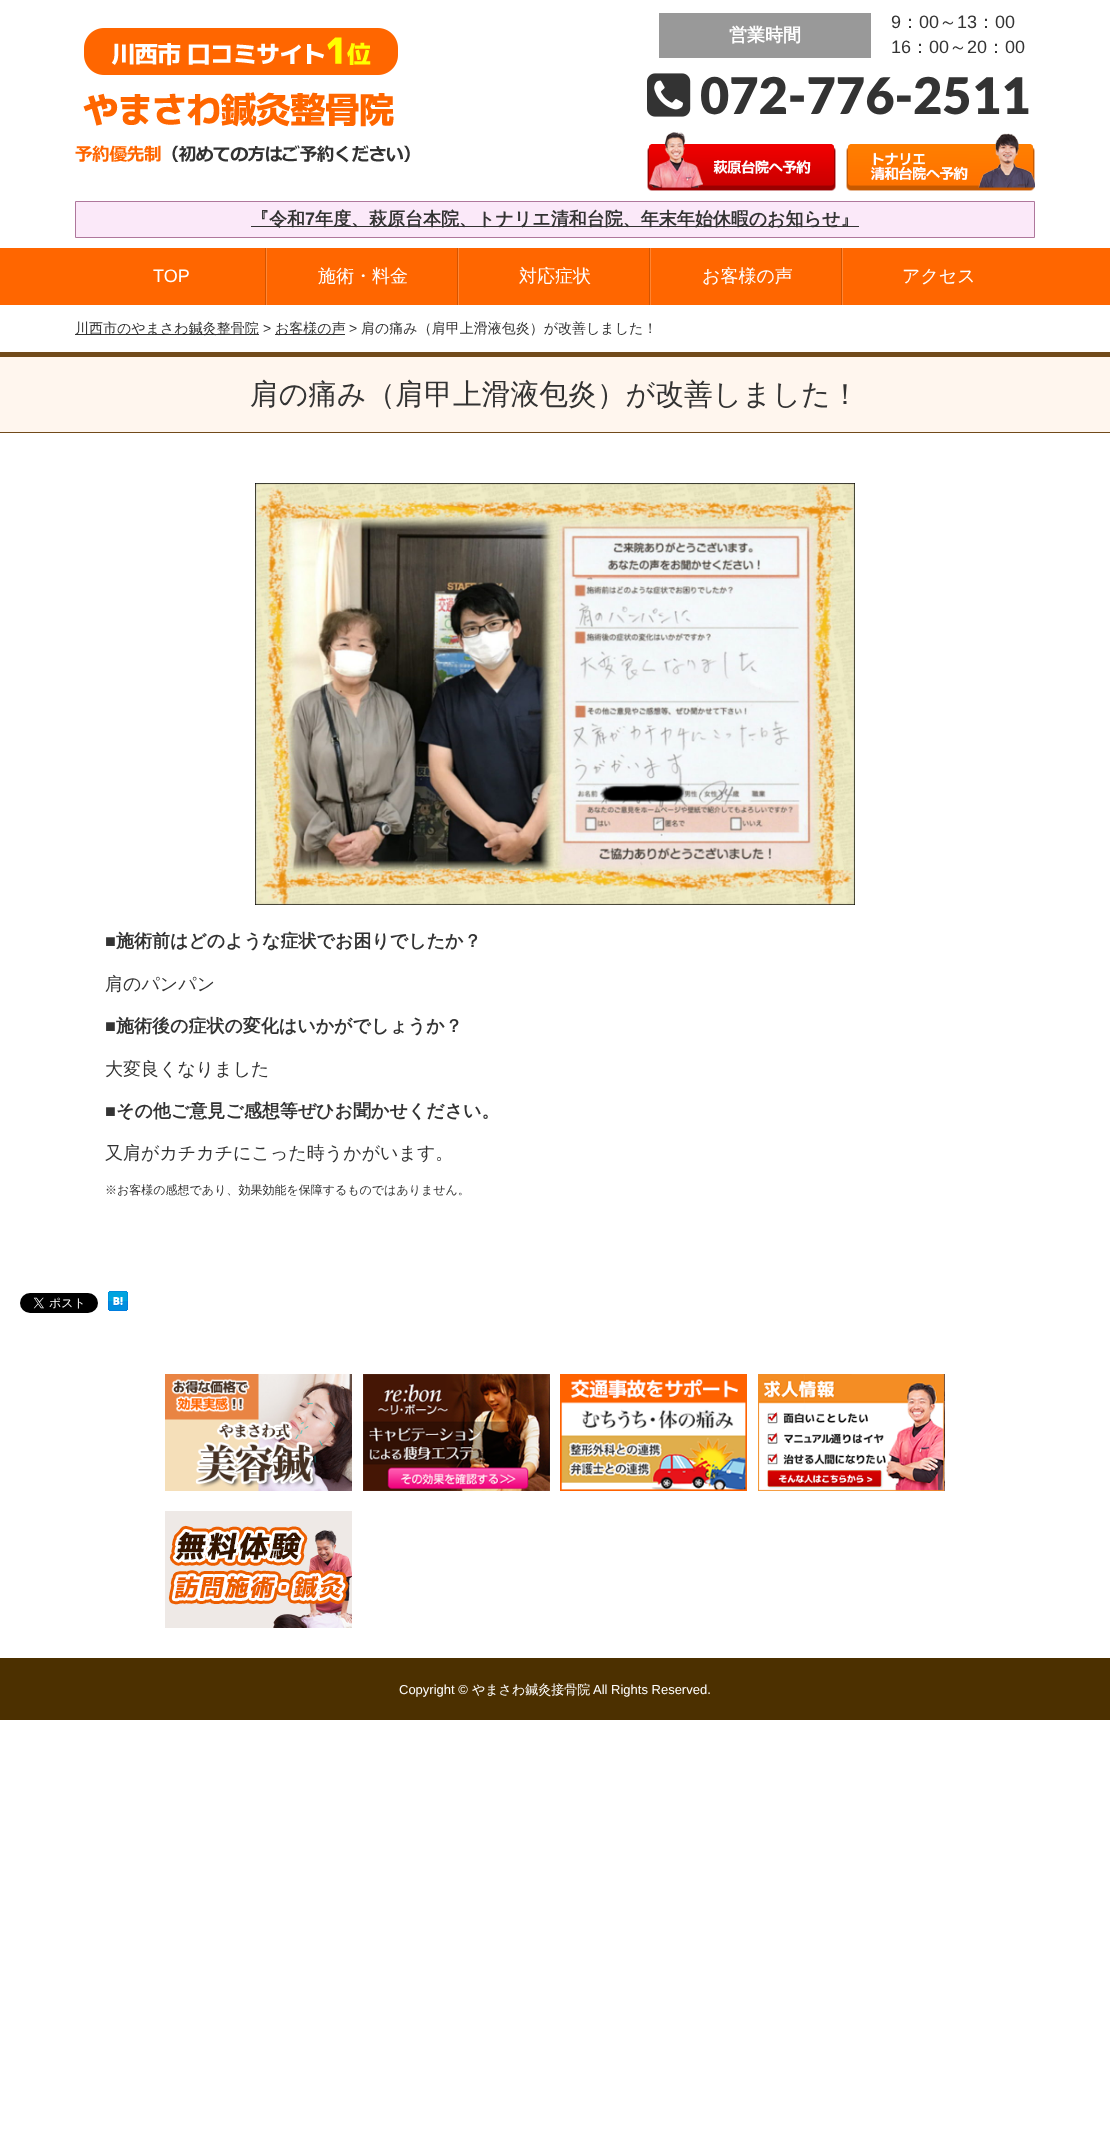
async function draw(canvas) {
	canvas.width = 1110;
	canvas.height = 2136;
	const c = canvas.getContext('2d');
	c.miterLimit = 4;
	c.fontKerning = 'normal';
	async function loadImage(src) {
		const img = new Image();
		img.src = src;
		await img.decode();
		return img;
	}

	c.fillStyle = '#fff';
	c.fillRect(0, 0, 1110, 2136);
	c.drawImage(await loadImage('img1.png'), 75, 28, 335, 135);
	c.fillStyle = '#999';
	c.fillRect(659, 13, 212, 45);
	c.font = 'bold 18px WenQuanYi Zen Hei';
	c.fillStyle = '#fff';
	c.fillText('営業時間', 729, 41);
	c.font = '18px Liberation Sans';
	c.fillStyle = '#333';
	c.fillText('9', 891, 28);
	c.font = '500 18px WenQuanYi Zen Hei';
	c.fillText('：', 901, 28);
	c.font = '18px Liberation Sans';
	c.fillText('00', 919, 28);
	c.font = '500 18px WenQuanYi Zen Hei';
	c.fillText('～', 939, 28);
	c.font = '18px Liberation Sans';
	c.fillText('13', 957, 28);
	c.font = '500 18px WenQuanYi Zen Hei';
	c.fillText('：', 977, 28);
	c.font = '18px Liberation Sans';
	c.fillText('00', 995, 28);
	c.fillText('16', 891, 53);
	c.font = '500 18px WenQuanYi Zen Hei';
	c.fillText('：', 911, 53);
	c.font = '18px Liberation Sans';
	c.fillText('00', 929, 53);
	c.font = '500 18px WenQuanYi Zen Hei';
	c.fillText('～', 949, 53);
	c.font = '18px Liberation Sans';
	c.fillText('20', 967, 53);
	c.font = '500 18px WenQuanYi Zen Hei';
	c.fillText('：', 987, 53);
	c.font = '18px Liberation Sans';
	c.fillText('00', 1005, 53);
	c.drawImage(await loadImage('img2.png'), 647, 73, 44, 44);
	c.font = '900 50.5px Lato';
	c.fillText('072-776-2511', 700, 114);
	c.drawImage(await loadImage('img3.png'), 647, 132, 189, 59);
	c.drawImage(await loadImage('img4.png'), 846, 133, 189, 58);
	c.fillStyle = '#fbe9f9';
	c.beginPath();
	c.rect(75.5, 201.5, 959, 36);
	c.fill();
	c.strokeStyle = '#af779c';
	c.stroke();
	c.fillStyle = '#333';
	c.fillRect(251, 226, 608, 1);
	c.font = 'bold 18px WenQuanYi Zen Hei';
	c.fillText('『令和', 251, 225);
	c.font = 'bold 18px Liberation Sans';
	c.fillText('7', 305, 225);
	c.font = 'bold 18px WenQuanYi Zen Hei';
	c.fillText('年度、萩原台本院、トナリエ清和台院、年末年始休暇のお知らせ』', 315, 225);
	c.fillStyle = '#f60';
	c.fillRect(0, 248, 1110, 57);
	c.font = '18px Liberation Sans';
	c.fillStyle = '#fff';
	c.fillText('TOP', 153, 282);
	c.fillStyle = '#d35400';
	c.fillRect(265, 248, 1, 57);
	c.fillStyle = '#ff8635';
	c.fillRect(266, 248, 1, 57);
	c.font = '500 18px WenQuanYi Zen Hei';
	c.fillStyle = '#fff';
	c.fillText('施術・料金', 318, 282);
	c.fillStyle = '#d35400';
	c.fillRect(457, 248, 1, 57);
	c.fillStyle = '#ff8635';
	c.fillRect(458, 248, 1, 57);
	c.fillStyle = '#fff';
	c.fillText('対応症状', 519, 282);
	c.fillStyle = '#d35400';
	c.fillRect(649, 248, 1, 57);
	c.fillStyle = '#ff8635';
	c.fillRect(650, 248, 1, 57);
	c.fillStyle = '#fff';
	c.fillText('お客様の声', 702, 282);
	c.fillStyle = '#d35400';
	c.fillRect(841, 248, 1, 57);
	c.fillStyle = '#ff8635';
	c.fillRect(842, 248, 1, 57);
	c.fillStyle = '#fff';
	c.fillText('アクセス', 902, 282);
	c.fillStyle = '#333';
	c.fillRect(75, 334, 184, 1);
	c.font = '500 14px WenQuanYi Zen Hei';
	c.fillText('川西市のやまさわ鍼灸整骨院', 75, 333);
	c.font = '14px Liberation Sans';
	c.fillText('>', 263, 333);
	c.fillRect(275, 334, 70, 1);
	c.font = '500 14px WenQuanYi Zen Hei';
	c.fillText('お客様の声', 275, 333);
	c.font = '14px Liberation Sans';
	c.fillText('>', 349, 333);
	c.font = '500 14px WenQuanYi Zen Hei';
	c.fillText('肩の痛み（肩甲上滑液包炎）が改善しました！', 361, 333);
	for (const [x, y, w, h, color] of [
		[0, 357, 1110, 75, '#fff6ee'],
		[0, 352, 1110, 5, '#714a1a'],
		[0, 432, 1110, 1, '#714a1a'],
	]) {
		c.fillStyle = color;
		c.fillRect(x, y, w, h);
	}
	c.font = '500 28.8px WenQuanYi Zen Hei';
	c.fillStyle = '#333';
	c.fillText('肩の痛み（肩甲上滑液包炎）が改善しました！', 250, 404);
	c.drawImage(await loadImage('img5.png'), 255, 483, 600, 422);
	c.font = 'bold 18px Liberation Sans';
	c.fillText('■', 105, 947);
	c.font = 'bold 18px WenQuanYi Zen Hei';
	c.fillText('施術前はどのような症状でお困りでしたか？', 116, 947);
	c.font = '500 18px WenQuanYi Zen Hei';
	c.fillText('肩のパンパン', 105, 990);
	c.font = 'bold 18px Liberation Sans';
	c.fillText('■', 105, 1032);
	c.font = 'bold 18px WenQuanYi Zen Hei';
	c.fillText('施術後の症状の変化はいかがでしょうか？', 116, 1032);
	c.font = '500 18px WenQuanYi Zen Hei';
	c.fillText('大変良くなりました', 105, 1075);
	c.font = 'bold 18px Liberation Sans';
	c.fillText('■', 105, 1117);
	c.font = 'bold 18px WenQuanYi Zen Hei';
	c.fillText('その他ご意見ご感想等ぜひお聞かせください。', 116, 1117);
	c.font = '500 18px WenQuanYi Zen Hei';
	c.fillText('又肩がカチカチにこった時うかがいます。', 105, 1159);
	c.font = '500 12px WenQuanYi Zen Hei';
	c.fillText('※お客様の感想であり、効果効能を保障するものではありません。', 105, 1194);
	c.drawImage(await loadImage('img6.png'), 20, 1293, 78, 20);
	c.drawImage(await loadImage('img7.png'), 108, 1291, 20, 20);
	c.drawImage(await loadImage('img8.png'), 165, 1374, 187, 117);
	c.drawImage(await loadImage('img9.png'), 363, 1374, 187, 117);
	c.drawImage(await loadImage('img10.png'), 560, 1374, 187, 117);
	c.drawImage(await loadImage('img11.png'), 758, 1374, 187, 117);
	c.drawImage(await loadImage('img12.png'), 165, 1511, 187, 117);
	c.fillStyle = '#4c3000';
	c.fillRect(0, 1658, 1110, 62);
	c.font = '13px Liberation Sans';
	c.fillStyle = '#fff';
	c.fillText('Copyright ©', 399, 1694);
	c.font = '500 13px WenQuanYi Zen Hei';
	c.fillText('やまさわ鍼灸接骨院', 472, 1694);
	c.font = '13px Liberation Sans';
	c.fillText('All Rights Reserved.', 593, 1694);
}

draw(document.querySelector('canvas'));
